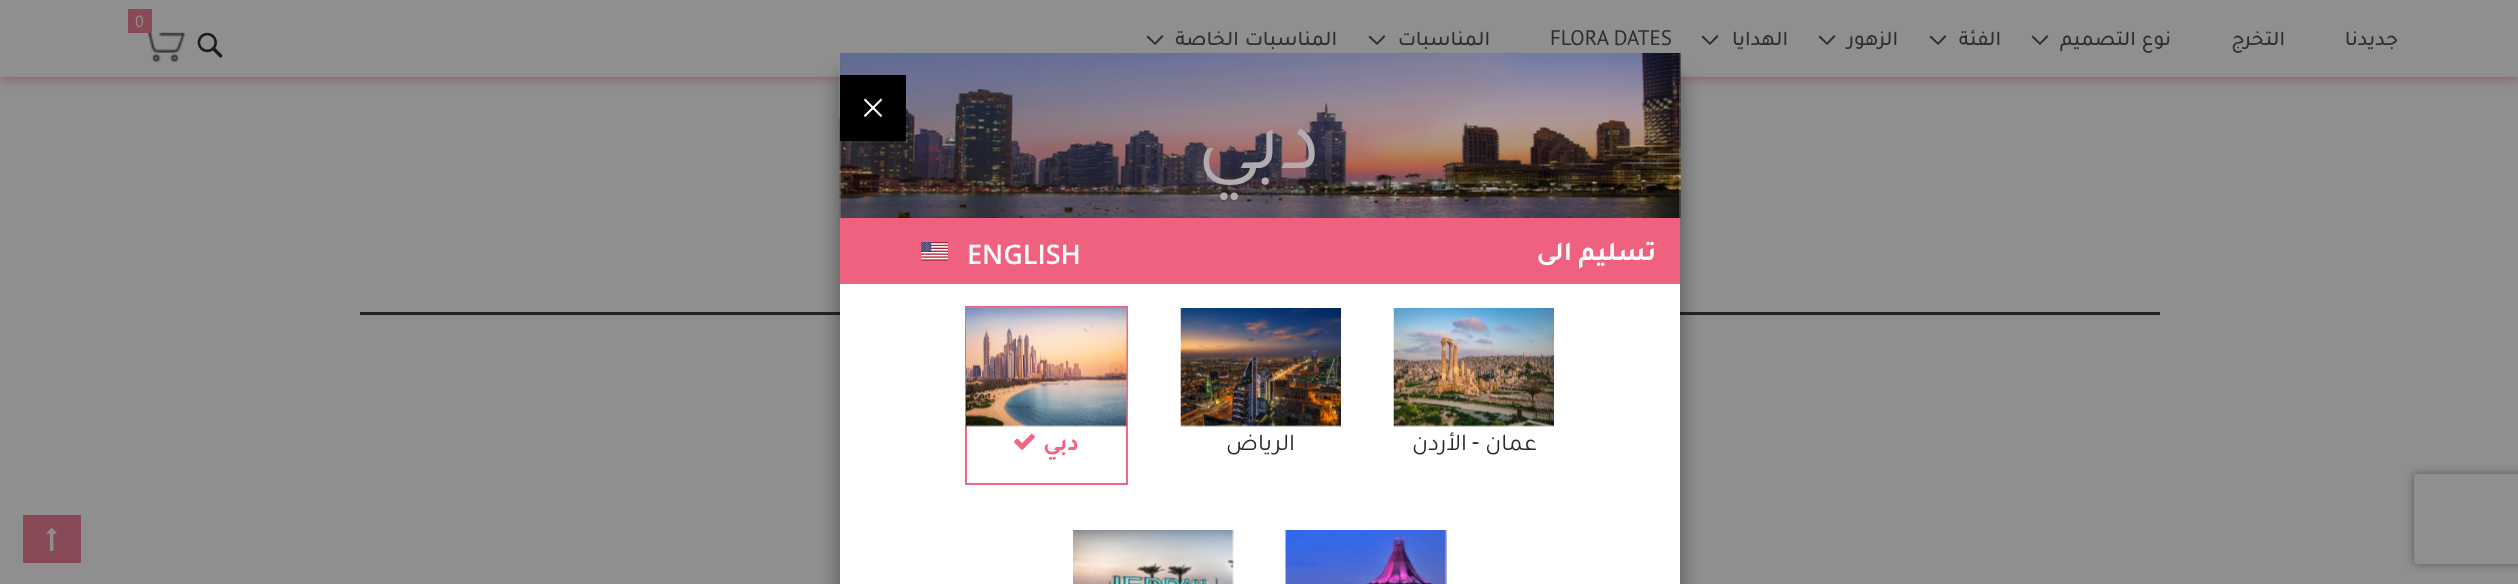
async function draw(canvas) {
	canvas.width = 2518;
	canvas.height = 584;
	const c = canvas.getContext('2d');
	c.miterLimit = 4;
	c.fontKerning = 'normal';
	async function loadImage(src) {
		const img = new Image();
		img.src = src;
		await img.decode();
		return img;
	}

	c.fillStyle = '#8f8f8f';
	c.fillRect(0, 0, 2518, 584);
	c.fillStyle = '#894a57';
	c.filter = 'blur(6px)';
	c.beginPath();
	c.rect(0, 0, 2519, 77);
	c.fill();
	c.filter = 'none';
	c.fillStyle = '#8f8f8f';
	c.fillRect(0, 0, 2518, 77);
	c.drawImage(await loadImage('img1.png'), 147, 32, 39, 30);
	c.fillStyle = '#894a57';
	c.fillRect(128, 9, 24, 24);
	c.font = '16px PT Sans';
	c.fillStyle = '#8f8f8f';
	c.fillText('0', 135, 27);
	c.drawImage(await loadImage('img2.png'), 197, 32, 26, 26);
	c.direction = 'rtl';
	c.font = '500 21px Tajawal';
	c.fillStyle = '#2e2e2e';
	c.fillText('جديدنا', 2398, 45);
	c.fillText('التخرج', 2285, 45);
	c.wordSpacing = '1px';
	c.fillText('نوع التصميم', 2171, 45);
	c.beginPath();
	c.moveTo(2040, 42.5);
	c.lineTo(2033, 35.5);
	c.lineTo(2031.5, 37);
	c.lineTo(2040, 45);
	c.lineTo(2048.5, 36.5);
	c.lineTo(2047, 35);
	c.closePath();
	c.fill();
	c.wordSpacing = '0px';
	c.fillText('الفئة', 2001, 45);
	c.beginPath();
	c.moveTo(1938, 42.5);
	c.lineTo(1931, 35.5);
	c.lineTo(1929.5, 37);
	c.lineTo(1938, 45);
	c.lineTo(1946.5, 36.5);
	c.lineTo(1945, 35);
	c.closePath();
	c.fill();
	c.fillText('الزهور', 1898, 45);
	c.beginPath();
	c.moveTo(1827, 42.5);
	c.lineTo(1820, 35.5);
	c.lineTo(1818.5, 37);
	c.lineTo(1827, 45);
	c.lineTo(1835.5, 36.5);
	c.lineTo(1834, 35);
	c.closePath();
	c.fill();
	c.fillText('الهدايا', 1788, 45);
	c.beginPath();
	c.moveTo(1710, 42.5);
	c.lineTo(1703, 35.5);
	c.lineTo(1701.5, 37);
	c.lineTo(1710, 45);
	c.lineTo(1718.5, 36.5);
	c.lineTo(1717, 35);
	c.closePath();
	c.fill();
	c.direction = 'ltr';
	c.font = '21px PT Sans';
	c.fillText('FLORA DATES', 1550, 45);
	c.direction = 'rtl';
	c.font = '500 21px Tajawal';
	c.fillText('المناسبات', 1490, 45);
	c.beginPath();
	c.moveTo(1377, 42.5);
	c.lineTo(1370, 35.5);
	c.lineTo(1368.5, 37);
	c.lineTo(1377, 45);
	c.lineTo(1385.5, 36.5);
	c.lineTo(1384, 35);
	c.closePath();
	c.fill();
	c.wordSpacing = '1px';
	c.fillText('المناسبات الخاصة', 1337, 45);
	c.beginPath();
	c.moveTo(1155, 42.5);
	c.lineTo(1148, 35.5);
	c.lineTo(1146.5, 37);
	c.lineTo(1155, 45);
	c.lineTo(1163.5, 36.5);
	c.lineTo(1162, 35);
	c.closePath();
	c.fill();
	c.fillStyle = '#242424';
	c.fillRect(360, 312, 1800, 3);
	c.fillStyle = '#894a57';
	c.fillRect(23, 515, 58, 48);
	c.drawImage(await loadImage('img3.png'), 46, 527, 11, 24);
	c.fillStyle = '#00000059';
	c.filter = 'blur(9px)';
	c.beginPath();
	c.roundRect(837, 72, 846, 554, 15);
	c.fill();
	c.filter = 'none';
	c.fillStyle = '#fff';
	c.beginPath();
	c.moveTo(852, 75);
	c.lineTo(1668, 75);
	c.bezierCurveTo(1674.5, 75, 1680, 80.5, 1680, 87);
	c.lineTo(1680, 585);
	c.lineTo(840, 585);
	c.lineTo(840, 87);
	c.bezierCurveTo(840, 80.5, 845.5, 75, 852, 75);
	c.closePath();
	c.fill();
	c.drawImage(await loadImage('img5.png'), 839, 53, 842, 165);
	c.fillStyle = '#0000004d';
	c.fillRect(840, 53, 840, 165);
	c.fillStyle = '#000';
	c.fillRect(840, 75, 66, 66);
	c.drawImage(await loadImage('img4.png'), 863, 98, 20, 19);
	c.wordSpacing = '0px';
	c.font = '90px Tajawal';
	c.fillStyle = '#b2abaf';
	c.fillText('دبي', 1321, 168);
	c.fillStyle = '#f06180';
	c.fillRect(840, 218, 840, 66);
	c.font = 'bold 27px Tajawal';
	c.fillStyle = '#fdfdfd';
	c.fillText('تسليم الى', 1656, 260);
	c.direction = 'ltr';
	c.font = '600 27px Open Sans';
	c.fillText('ENGLISH', 967, 264);
	c.drawImage(await loadImage('img6.png'), 921, 242, 27, 19);
	c.drawImage(await loadImage('img7.png'), 1393, 308, 161, 119);
	c.direction = 'rtl';
	c.font = '24px Tajawal';
	c.fillStyle = '#282828';
	c.fillText('عمان', 1537, 450);
	c.font = '24px PT Sans';
	c.fillText('-', 1480, 450);
	c.font = '24px Tajawal';
	c.fillText('الأردن', 1467, 450);
	c.drawImage(await loadImage('img8.png'), 1180, 308, 161, 119);
	c.fillText('الرياض', 1295, 450);
	c.strokeStyle = '#f16682';
	c.lineWidth = 2;
	c.strokeRect(966, 307, 161, 177);
	c.drawImage(await loadImage('img9.png'), 966, 308, 161, 119);
	c.font = 'bold 24px Tajawal';
	c.fillStyle = '#f16682';
	c.fillText('دبي', 1079, 450);
	c.drawImage(await loadImage('img10.png'), 1014, 433, 21, 17);
	c.drawImage(await loadImage('img11.png'), 1285, 530, 162, 54);
	c.drawImage(await loadImage('img12.png'), 1073, 530, 161, 54);
	c.save();
	c.beginPath();
	c.moveTo(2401, 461);
	c.lineTo(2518, 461);
	c.lineTo(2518, 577);
	c.lineTo(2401, 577);
	c.closePath();
	c.moveTo(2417, 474);
	c.lineTo(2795, 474);
	c.bezierCurveTo(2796.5, 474, 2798, 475.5, 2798, 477);
	c.lineTo(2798, 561);
	c.bezierCurveTo(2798, 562.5, 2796.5, 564, 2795, 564);
	c.lineTo(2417, 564);
	c.bezierCurveTo(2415.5, 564, 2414, 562.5, 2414, 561);
	c.lineTo(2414, 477);
	c.bezierCurveTo(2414, 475.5, 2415.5, 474, 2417, 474);
	c.closePath();
	c.clip('evenodd');
	c.fillStyle = '#565656';
	c.filter = 'blur(4px)';
	c.beginPath();
	c.roundRect(2414, 474, 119, 90, 3);
	c.fill();
	c.filter = 'none';
	c.restore();
}

draw(document.querySelector('canvas'));
